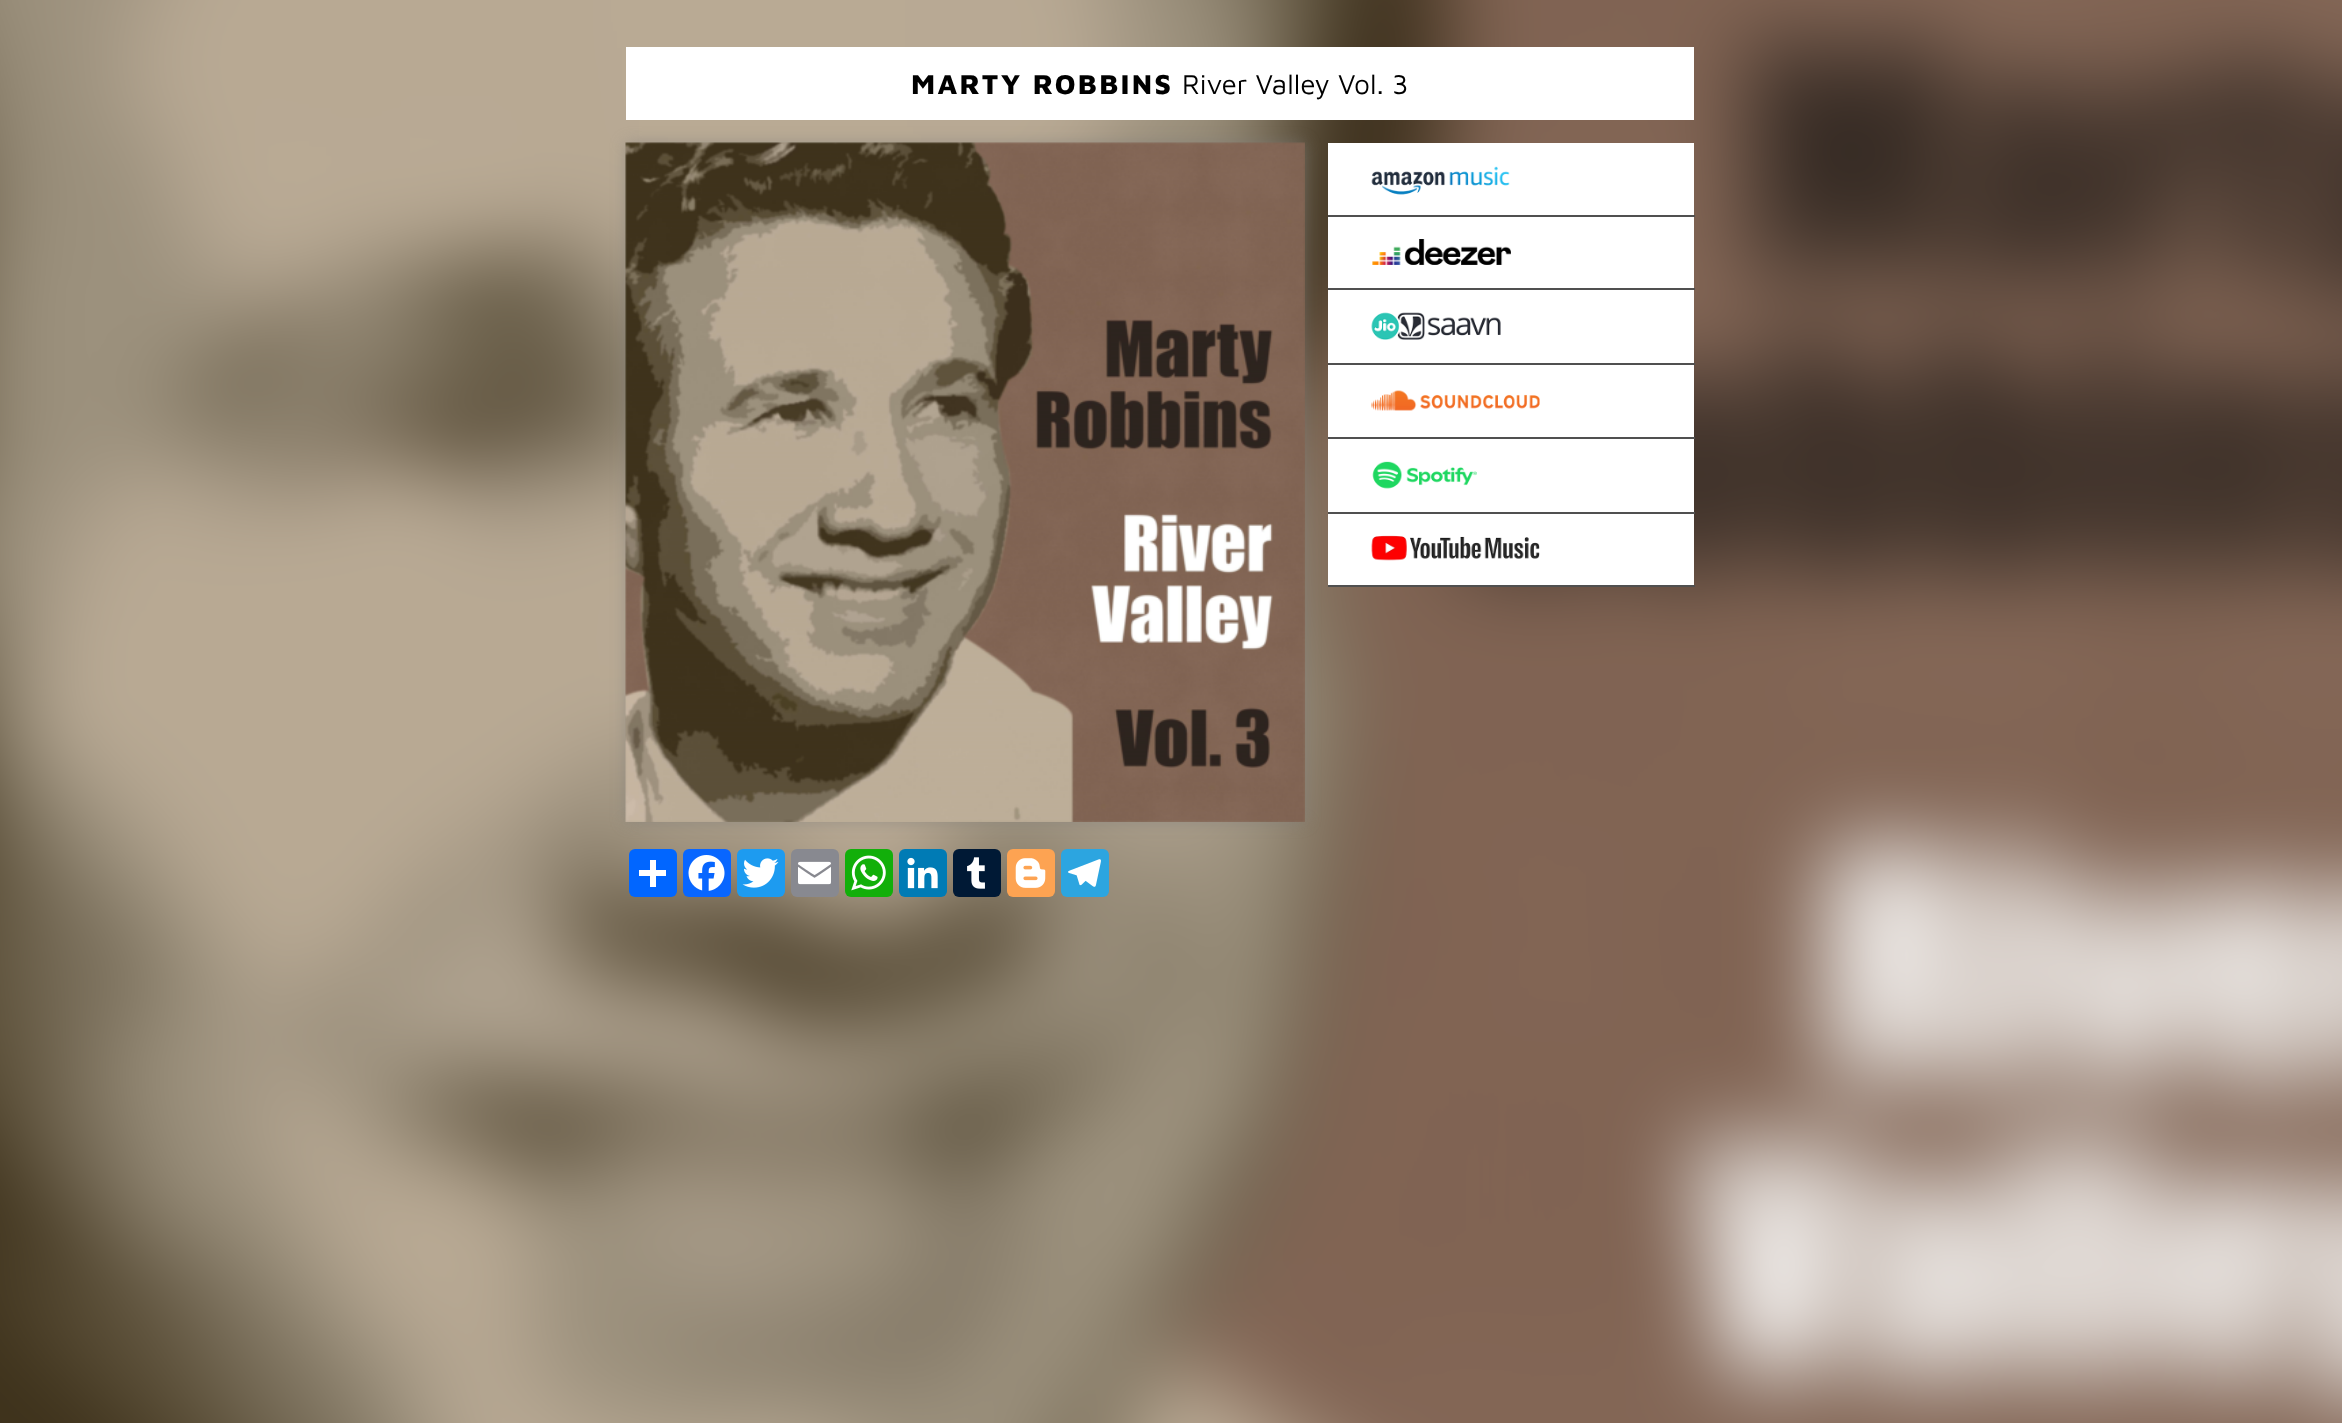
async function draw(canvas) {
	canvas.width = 2342;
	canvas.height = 1423;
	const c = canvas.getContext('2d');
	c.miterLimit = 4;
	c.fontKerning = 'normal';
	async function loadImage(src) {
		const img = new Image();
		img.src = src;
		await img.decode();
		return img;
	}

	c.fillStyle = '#fff';
	c.fillRect(0, 0, 2342, 1423);
	c.drawImage(await loadImage('img1.png'), 0, 0, 2342, 1423);
	c.fillRect(626, 47, 1068, 73);
	c.letterSpacing = '2.3px';
	c.font = '800 28.1px Maven Pro';
	c.fillStyle = '#000';
	c.fillText('MARTY ROBBINS', 911, 94);
	c.letterSpacing = '0px';
	c.font = '28.1px Maven Pro';
	c.fillText('River Valley Vol. 3', 1182, 94);
	c.save();
	c.beginPath();
	c.moveTo(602, 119);
	c.lineTo(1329, 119);
	c.lineTo(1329, 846);
	c.lineTo(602, 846);
	c.closePath();
	c.moveTo(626, 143);
	c.lineTo(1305, 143);
	c.lineTo(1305, 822);
	c.lineTo(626, 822);
	c.closePath();
	c.clip('evenodd');
	c.fillStyle = '#7d7d7d80';
	c.filter = 'blur(7.5px)';
	c.beginPath();
	c.rect(626, 143, 679, 679);
	c.fill();
	c.filter = 'none';
	c.restore();
	c.drawImage(await loadImage('img2.png'), 625, 142, 680, 680);
	c.fillStyle = '#0166ff';
	c.beginPath();
	c.roundRect(629, 849, 48, 48, 6);
	c.fill();
	c.fillStyle = '#fff';
	c.fillRect(650, 860, 6, 27);
	c.fillRect(639, 870, 27, 6);
	c.fillStyle = '#0866ff';
	c.beginPath();
	c.roundRect(683, 849, 48, 48, 6);
	c.fill();
	c.drawImage(await loadImage('img3.png'), 688, 855, 37, 36);
	c.fillStyle = '#1d9bf0';
	c.beginPath();
	c.roundRect(737, 849, 48, 48, 6);
	c.fill();
	c.drawImage(await loadImage('img4.png'), 742, 858, 37, 30);
	c.fillStyle = '#888990';
	c.beginPath();
	c.roundRect(791, 849, 48, 48, 6);
	c.fill();
	c.drawImage(await loadImage('img5.png'), 798, 861, 33, 24);
	c.fillStyle = '#12af0a';
	c.beginPath();
	c.roundRect(845, 849, 48, 48, 6);
	c.fill();
	c.drawImage(await loadImage('img6.png'), 851, 855, 35, 36);
	c.fillStyle = '#007bb5';
	c.beginPath();
	c.roundRect(899, 849, 48, 48, 6);
	c.fill();
	c.drawImage(await loadImage('img7.png'), 907, 857, 31, 32);
	c.fillStyle = '#001935';
	c.beginPath();
	c.roundRect(953, 849, 48, 48, 6);
	c.fill();
	c.drawImage(await loadImage('img8.png'), 967, 857, 18, 32);
	c.fillStyle = '#fda352';
	c.beginPath();
	c.roundRect(1007, 849, 48, 48, 6);
	c.fill();
	c.drawImage(await loadImage('img9.png'), 1015, 858, 31, 30);
	c.fillStyle = '#2ca5e0';
	c.beginPath();
	c.roundRect(1061, 849, 48, 48, 6);
	c.fill();
	c.drawImage(await loadImage('img10.png'), 1068, 859, 33, 28);
	c.fillStyle = '#fff';
	c.fillRect(1328, 143, 366, 72);
	c.fillStyle = '#505050';
	c.fillRect(1328, 215, 367, 2);
	c.drawImage(await loadImage('img11.png'), 1371, 166, 139, 29);
	c.fillStyle = '#fff';
	c.fillRect(1328, 217, 366, 71);
	c.fillStyle = '#505050';
	c.fillRect(1328, 288, 367, 2);
	c.drawImage(await loadImage('img12.png'), 1372, 239, 139, 26);
	c.fillStyle = '#fff';
	c.fillRect(1328, 290, 366, 73);
	c.fillStyle = '#505050';
	c.fillRect(1328, 363, 367, 2);
	c.drawImage(await loadImage('img13.png'), 1371, 312, 130, 28);
	c.fillStyle = '#fff';
	c.fillRect(1328, 365, 366, 72);
	c.fillStyle = '#505050';
	c.fillRect(1328, 437, 367, 2);
	c.drawImage(await loadImage('img14.png'), 1371, 390, 169, 21);
	c.fillStyle = '#fff';
	c.fillRect(1328, 439, 366, 73);
	c.fillStyle = '#505050';
	c.fillRect(1328, 512, 367, 2);
	c.drawImage(await loadImage('img15.png'), 1372, 461, 105, 28);
	c.fillStyle = '#fff';
	c.fillRect(1328, 514, 366, 71);
	c.fillStyle = '#505050';
	c.fillRect(1328, 585, 367, 2);
	c.drawImage(await loadImage('img16.png'), 1371, 535, 169, 26);
}

draw(document.querySelector('canvas'));
